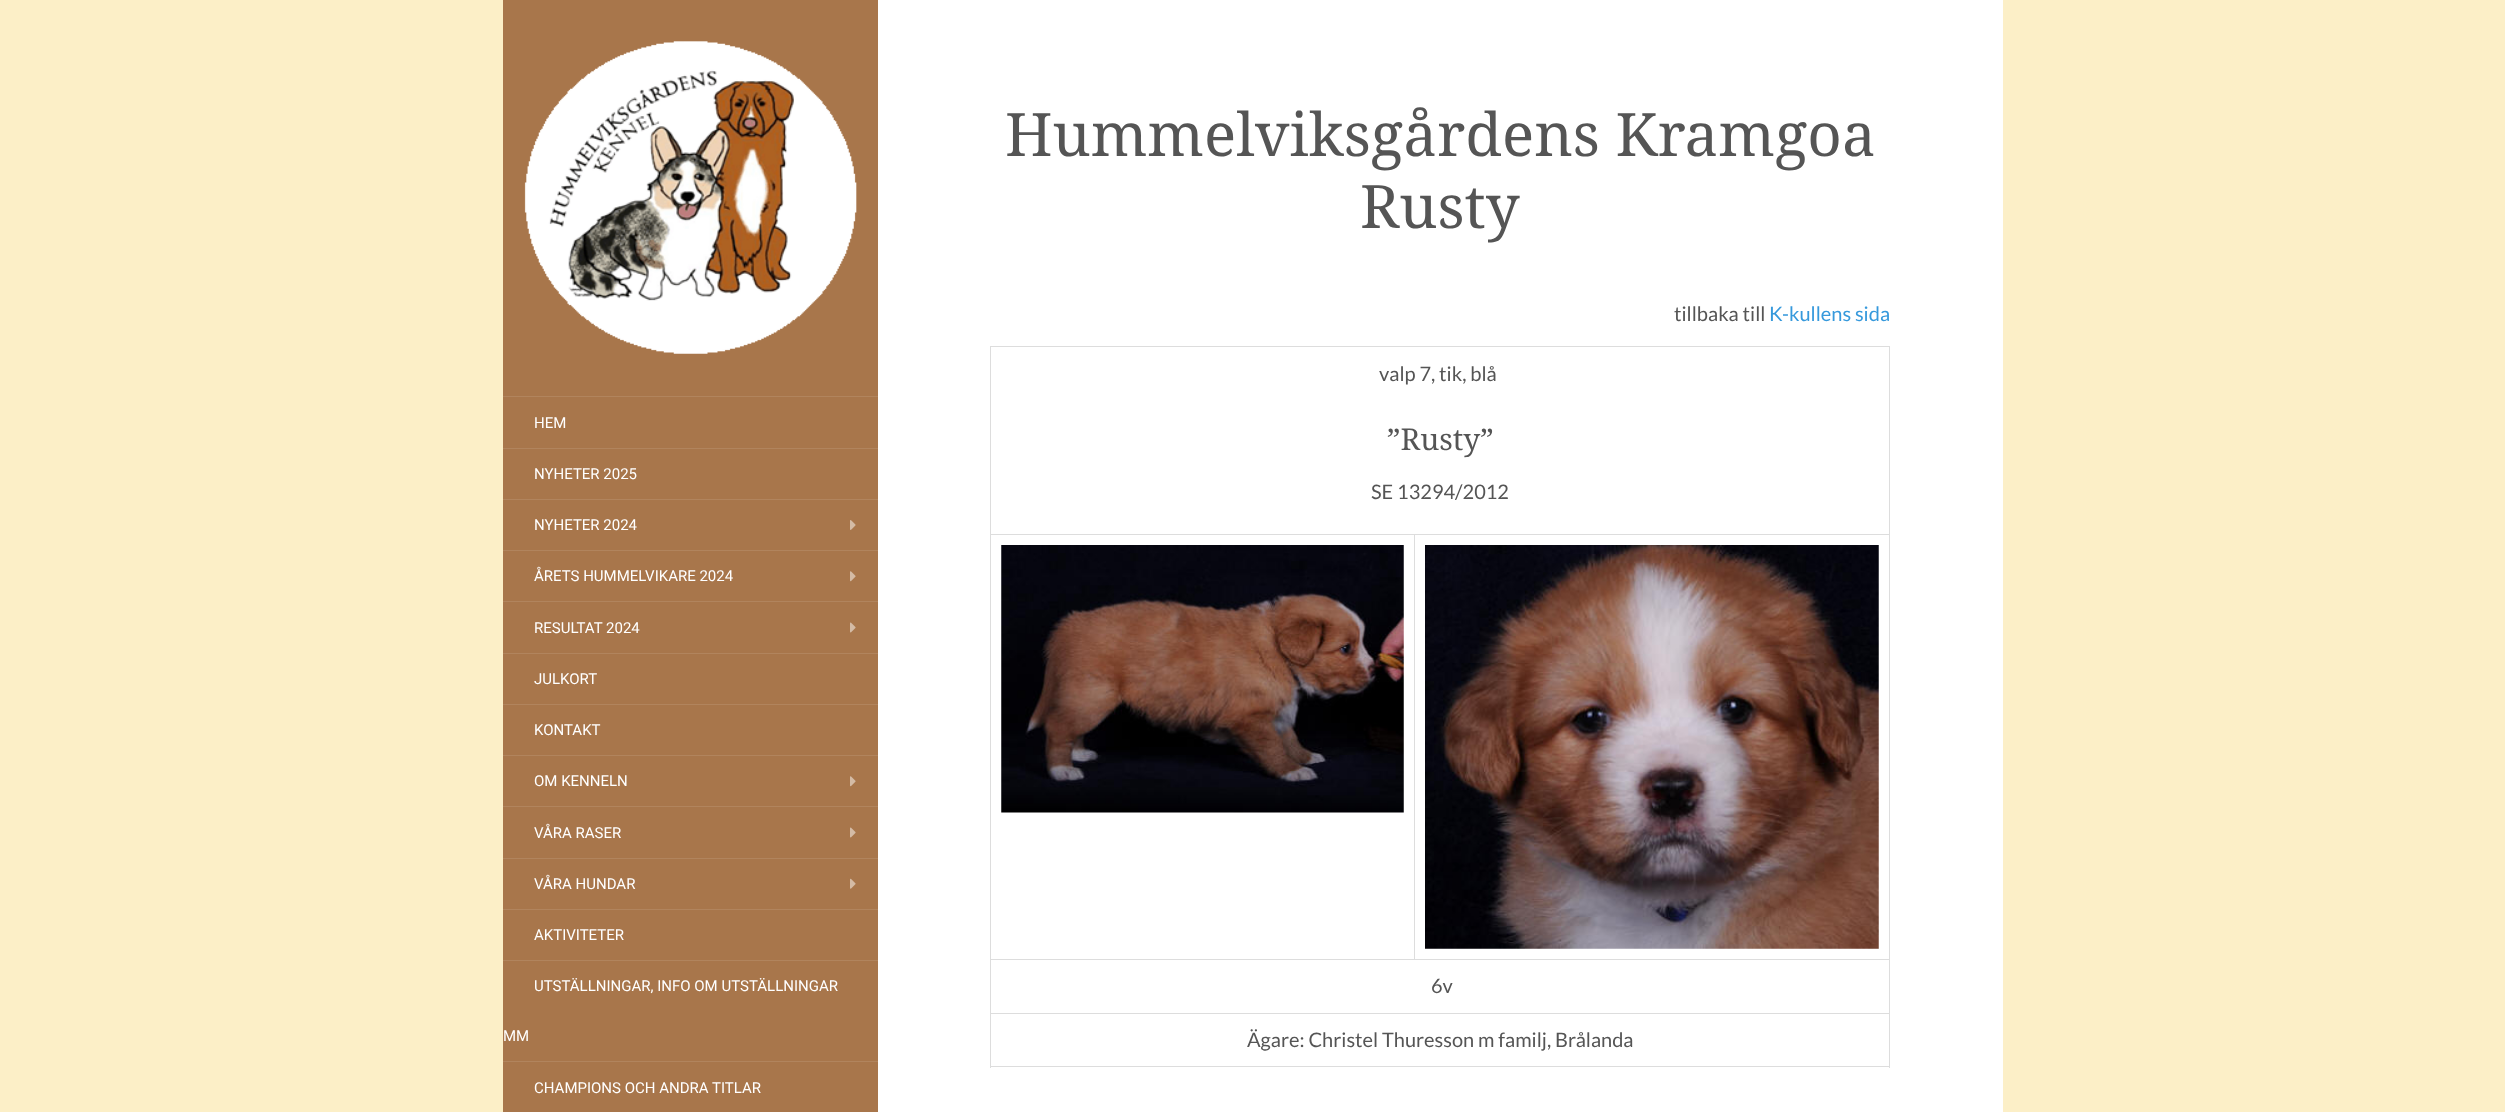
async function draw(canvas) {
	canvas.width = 2505;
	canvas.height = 1112;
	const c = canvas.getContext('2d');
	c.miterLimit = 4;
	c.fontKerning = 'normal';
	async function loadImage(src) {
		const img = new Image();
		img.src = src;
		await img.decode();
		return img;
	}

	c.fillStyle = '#fcefc7';
	c.fillRect(0, 0, 2505, 1112);
	for (const [x, y, w, h, color] of [
		[878, 0, 1125, 1112, '#fff'],
		[503, 0, 375, 1112, '#a8764b'],
		[503, 396, 375, 1, '#b1845d'],
	]) {
		c.fillStyle = color;
		c.fillRect(x, y, w, h);
	}
	c.drawImage(await loadImage('img1.png'), 524, 41, 333, 313);
	c.fillRect(503, 448, 375, 1);
	c.font = '15px Roboto';
	c.fillStyle = '#fff';
	c.fillText('HEM', 534, 428);
	c.fillStyle = '#b1845d';
	c.fillRect(503, 499, 375, 1);
	c.fillStyle = '#fff';
	c.fillText('NYHETER 2025', 534, 479);
	c.fillStyle = '#b1845d';
	c.fillRect(503, 550, 375, 1);
	c.fillStyle = '#fff';
	c.fillText('NYHETER 2024', 534, 530);
	c.drawImage(await loadImage('img2.png'), 850, 520, 6, 10);
	c.fillStyle = '#b1845d';
	c.fillRect(503, 601, 375, 1);
	c.fillStyle = '#fff';
	c.fillText('ÅRETS HUMMELVIKARE 2024', 534, 581);
	c.drawImage(await loadImage('img3.png'), 850, 571, 6, 11);
	c.fillStyle = '#b1845d';
	c.fillRect(503, 653, 375, 1);
	c.fillStyle = '#fff';
	c.fillText('RESULTAT 2024', 534, 633);
	c.drawImage(await loadImage('img4.png'), 850, 622, 6, 11);
	c.fillStyle = '#b1845d';
	c.fillRect(503, 704, 375, 1);
	c.fillStyle = '#fff';
	c.fillText('JULKORT', 534, 684);
	c.fillStyle = '#b1845d';
	c.fillRect(503, 755, 375, 1);
	c.fillStyle = '#fff';
	c.fillText('KONTAKT', 534, 735);
	c.fillStyle = '#b1845d';
	c.fillRect(503, 806, 375, 1);
	c.fillStyle = '#fff';
	c.fillText('OM KENNELN', 534, 786);
	c.drawImage(await loadImage('img3.png'), 850, 776, 6, 11);
	c.fillStyle = '#b1845d';
	c.fillRect(503, 858, 375, 1);
	c.fillStyle = '#fff';
	c.fillText('VÅRA RASER', 534, 838);
	c.drawImage(await loadImage('img4.png'), 850, 827, 6, 11);
	c.fillStyle = '#b1845d';
	c.fillRect(503, 909, 375, 1);
	c.fillStyle = '#fff';
	c.fillText('VÅRA HUNDAR', 534, 889);
	c.drawImage(await loadImage('img5.png'), 850, 878, 6, 11);
	c.fillStyle = '#b1845d';
	c.fillRect(503, 960, 375, 1);
	c.fillStyle = '#fff';
	c.fillText('AKTIVITETER', 534, 940);
	c.fillStyle = '#b1845d';
	c.fillRect(503, 1061, 375, 1);
	c.fillStyle = '#fff';
	for (const [text, x, y] of [
		['UTSTÄLLNINGAR, INFO OM UTSTÄLLNINGAR', 534, 991],
		['MM', 503, 1041],
		['CHAMPIONS OCH ANDRA TITLAR', 534, 1093],
	]) {
		c.fillText(text, x, y);
	}
	c.font = '60px Droid Serif';
	c.fillStyle = '#555';
	c.fillText('Hummelviksgårdens Kramgoa', 1005, 156);
	c.fillText('Rusty', 1360, 228);
	c.font = '20px Lato';
	c.fillText('tillbaka till', 1674, 321);
	c.fillStyle = '#3699dc';
	c.fillText('K-kullens sida', 1769, 321);
	for (const [x, y, w, h, color] of [
		[990, 346, 900, 1, '#ddd'],
		[1889, 346, 1, 722, '#ddd'],
		[990, 1066, 900, 1, '#ddd'],
		[990, 346, 1, 722, '#ddd'],
	]) {
		c.fillStyle = color;
		c.fillRect(x, y, w, h);
	}
	c.fillStyle = '#555';
	c.fillText('valp 7, tik, blå', 1379, 381);
	c.font = '30px Droid Serif';
	c.fillText('”Rusty”', 1387, 450);
	c.font = '20px Lato';
	c.fillText('SE 13294/2012', 1371, 499);
	for (const [x, y, w, h, color] of [
		[1414, 534, 476, 1, '#ddd'],
		[990, 959, 900, 1, '#ddd'],
		[1414, 534, 1, 426, '#ddd'],
		[990, 534, 425, 1, '#ddd'],
	]) {
		c.fillStyle = color;
		c.fillRect(x, y, w, h);
	}
	c.drawImage(await loadImage('img6.png'), 1001, 545, 403, 268);
	c.drawImage(await loadImage('img7.png'), 1425, 545, 454, 404);
	c.fillStyle = '#555';
	c.fillText('6v', 1431, 993);
	c.fillStyle = '#ddd';
	c.fillRect(990, 1013, 900, 1);
	c.fillStyle = '#555';
	c.fillText('Ägare: Christel Thuresson m familj, Brålanda', 1247, 1047);
}

draw(document.querySelector('canvas'));
